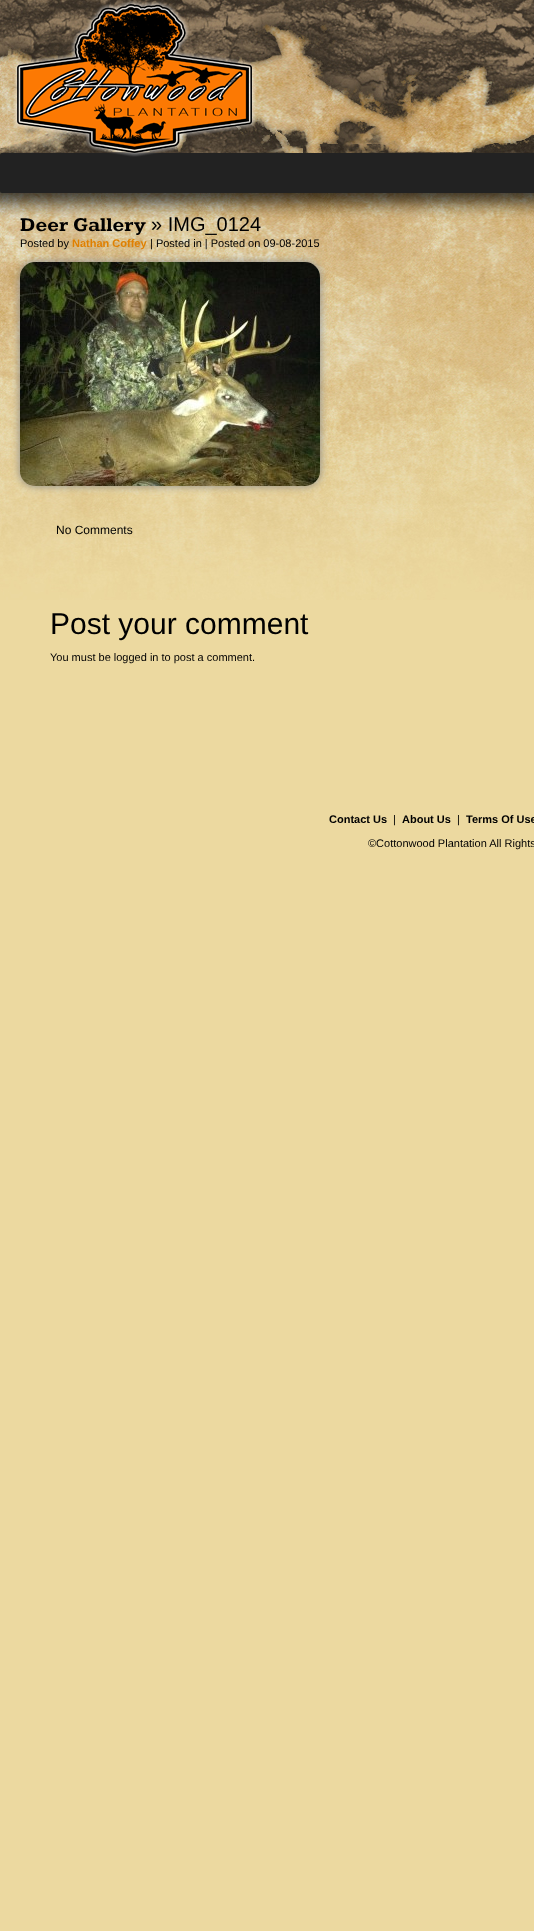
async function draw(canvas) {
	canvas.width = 534;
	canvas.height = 1931;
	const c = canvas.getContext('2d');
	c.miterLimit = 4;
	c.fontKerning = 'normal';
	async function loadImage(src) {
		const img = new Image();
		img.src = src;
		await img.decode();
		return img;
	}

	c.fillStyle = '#ecd9a0';
	c.fillRect(0, 0, 534, 1931);
	c.drawImage(await loadImage('img1.png'), 0, 0, 534, 600);
	c.fillStyle = '#222';
	c.beginPath();
	c.roundRect(0, 153, 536, 40, 2);
	c.fill();
	c.drawImage(await loadImage('img2.png'), 13, 0, 243, 157);
	c.font = 'bold 20px Kameron';
	c.fillStyle = '#000';
	c.fillText('Deer Gallery', 20, 231);
	c.font = '20px Liberation Sans';
	c.fillText('» IMG_0124', 151, 231);
	c.font = '11px Liberation Sans';
	c.fillText('Posted by', 20, 247);
	c.font = 'bold 11px Liberation Sans';
	c.fillStyle = '#e08000';
	c.fillText('Nathan Coffey', 72, 247);
	c.font = '11px Liberation Sans';
	c.fillStyle = '#000';
	c.fillText('| Posted in | Posted on 09-08-2015', 150, 247);
	c.fillStyle = '#888';
	c.filter = 'blur(4px)';
	c.beginPath();
	c.roundRect(20, 262, 300, 224, 15);
	c.fill();
	c.filter = 'none';
	c.drawImage(await loadImage('img3.png'), 20, 262, 300, 224);
	c.font = '12px Liberation Sans';
	c.fillStyle = '#000';
	c.fillText('No Comments', 56, 534);
	c.font = '30px Liberation Sans';
	c.fillText('Post your comment', 50, 634);
	c.font = '11px Liberation Sans';
	c.fillText('You must be logged in to post a comment.', 50, 661);
	c.font = 'bold 11px Liberation Sans';
	c.fillText('Contact Us', 329, 823);
	c.font = '11px Liberation Sans';
	c.fillText('|', 393, 823);
	c.font = 'bold 11px Liberation Sans';
	c.fillText('About Us', 402, 823);
	c.font = '11px Liberation Sans';
	c.fillText('|', 457, 823);
	c.font = 'bold 11px Liberation Sans';
	c.fillText('Terms Of Use', 466, 823);
	c.font = '11px Liberation Sans';
	c.fillText('©Cottonwood Plantation All Rights', 368, 847);
}

draw(document.querySelector('canvas'));
